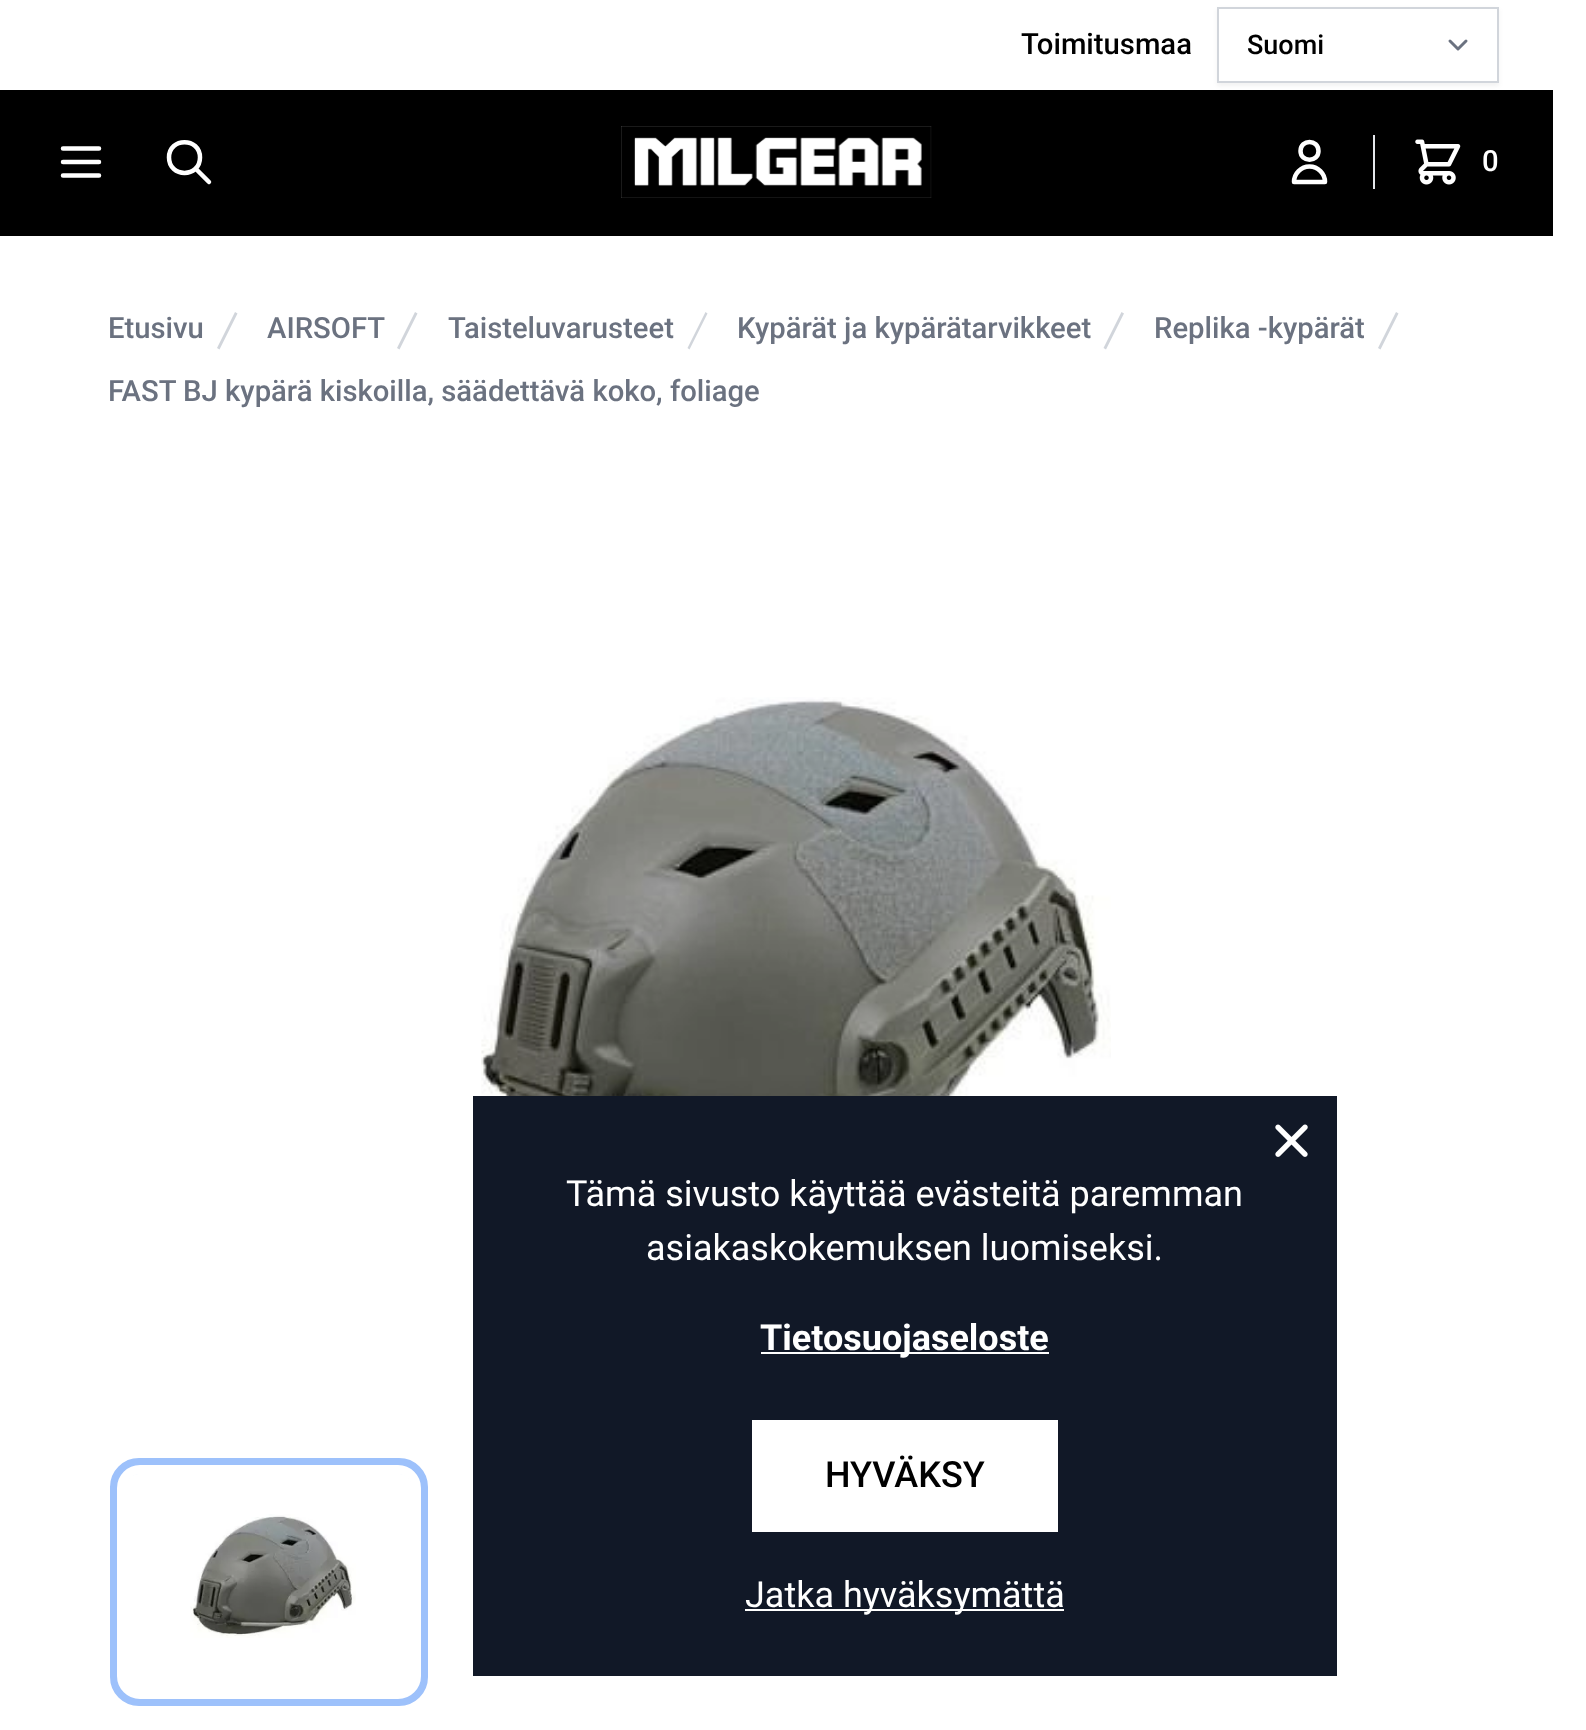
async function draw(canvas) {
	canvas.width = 1586;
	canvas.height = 1730;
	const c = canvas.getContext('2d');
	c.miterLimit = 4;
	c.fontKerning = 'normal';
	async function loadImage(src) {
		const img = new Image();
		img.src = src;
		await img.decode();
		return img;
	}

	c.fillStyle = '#fff';
	c.fillRect(0, 0, 1586, 1730);
	c.font = '500 29.25px Roboto';
	c.fillStyle = '#000';
	c.fillText('Toimitusmaa', 1021, 54);
	c.fillRect(0, 90, 1553, 146);
	c.fillStyle = '#0000000d';
	c.filter = 'blur(2px)';
	c.beginPath();
	c.rect(1217, 9, 282, 77);
	c.fill();
	c.filter = 'none';
	c.fillStyle = '#fff';
	c.fillRect(1219, 9, 278, 72);
	c.beginPath();
	c.moveTo(1450, 41);
	c.lineTo(1458, 49);
	c.lineTo(1466, 41);
	c.strokeStyle = '#6b7280';
	c.lineWidth = 3;
	c.lineCap = 'round';
	c.lineJoin = 'round';
	c.stroke();
	c.strokeStyle = '#d1d5db';
	c.lineWidth = 2;
	c.lineJoin = 'miter';
	c.strokeRect(1218, 8, 280, 74);
	c.font = '500 27px Roboto';
	c.fillStyle = '#000';
	c.fillText('Suomi', 1247, 54);
	c.beginPath();
	c.moveTo(63, 148.5);
	c.lineTo(99, 148.5);
	c.moveTo(63, 162);
	c.lineTo(99, 162);
	c.moveTo(63, 175.5);
	c.lineTo(99, 175.5);
	c.strokeStyle = '#fff';
	c.lineWidth = 4.5;
	c.lineJoin = 'round';
	c.stroke();
	c.beginPath();
	c.moveTo(209, 182);
	c.lineTo(196, 169);
	c.moveTo(200, 157.5);
	c.bezierCurveTo(200, 178, 169, 178, 169, 157.5);
	c.bezierCurveTo(169, 137, 200, 137, 200, 157.5);
	c.closePath();
	c.stroke();
	c.drawImage(await loadImage('img1.png'), 621, 126, 311, 72);
	c.beginPath();
	c.moveTo(1318.5, 151);
	c.bezierCurveTo(1318.5, 162.5, 1300.5, 162.5, 1300.5, 151);
	c.bezierCurveTo(1300.5, 139, 1318.5, 139, 1318.5, 151);
	c.closePath();
	c.moveTo(1309.5, 166.5);
	c.bezierCurveTo(1301, 166.5, 1294, 173.5, 1294, 182);
	c.lineTo(1325, 182);
	c.bezierCurveTo(1325, 173.5, 1318, 166.5, 1309.5, 166.5);
	c.closePath();
	c.stroke();
	c.fillStyle = '#e5e7eb';
	c.fillRect(1373, 135, 2, 54);
	c.drawImage(await loadImage('img2.png'), 1415, 139, 46, 46);
	c.font = '500 29.25px Roboto';
	c.fillStyle = '#fff';
	c.fillText('0', 1482, 171);
	c.fillStyle = '#6b7280';
	c.fillText('Etusivu', 108, 338);
	c.fillStyle = '#d1d5db';
	c.beginPath();
	c.moveTo(217, 348);
	c.lineTo(235, 312);
	c.lineTo(237.5, 313.5);
	c.lineTo(219.5, 349.5);
	c.closePath();
	c.fill();
	c.fillStyle = '#6b7280';
	c.fillText('AIRSOFT', 267, 338);
	c.fillStyle = '#d1d5db';
	c.beginPath();
	c.moveTo(397, 348);
	c.lineTo(415, 312);
	c.lineTo(417.5, 313.5);
	c.lineTo(399.5, 349.5);
	c.closePath();
	c.fill();
	c.fillStyle = '#6b7280';
	c.fillText('Taisteluvarusteet', 448, 338);
	c.fillStyle = '#d1d5db';
	c.beginPath();
	c.moveTo(687.5, 348);
	c.lineTo(705.5, 312);
	c.lineTo(707.5, 313.5);
	c.lineTo(689.5, 349.5);
	c.closePath();
	c.fill();
	c.fillStyle = '#6b7280';
	c.fillText('Kypärät ja kypärätarvikkeet', 737, 338);
	c.fillStyle = '#d1d5db';
	c.beginPath();
	c.moveTo(1103.5, 348);
	c.lineTo(1121.5, 312);
	c.lineTo(1124, 313.5);
	c.lineTo(1106, 349.5);
	c.closePath();
	c.fill();
	c.fillStyle = '#6b7280';
	c.fillText('Replika -kypärät', 1154, 338);
	c.fillStyle = '#d1d5db';
	c.beginPath();
	c.moveTo(1378, 348);
	c.lineTo(1396, 312);
	c.lineTo(1398.5, 313.5);
	c.lineTo(1380.5, 349.5);
	c.closePath();
	c.fill();
	c.fillStyle = '#6b7280';
	c.fillText('FAST BJ kypärä kiskoilla, säädettävä koko, foliage', 108, 401);
	c.drawImage(await loadImage('img3.png'), 481, 697, 630, 399);
	c.beginPath();
	c.roundRect(118, 1466, 302, 232, 21);
	c.strokeStyle = '#9dc1fb';
	c.lineWidth = 16;
	c.lineJoin = 'miter';
	c.stroke();
	c.beginPath();
	c.roundRect(121.5, 1469.5, 295, 225, 18.5);
	c.strokeStyle = '#fff';
	c.lineWidth = 9;
	c.stroke();
	c.fillStyle = '#fff';
	c.beginPath();
	c.roundRect(126, 1474, 286, 216, 14);
	c.fill();
	c.drawImage(await loadImage('img4.png'), 190, 1514, 166, 124);
	c.beginPath();
	c.roundRect(124.5, 1471.5, 289, 220, 15.5);
	c.lineWidth = 5;
	c.stroke();
	c.fillStyle = '#111827';
	c.fillRect(473, 1096, 864, 580);
	c.drawImage(await loadImage('img5.png'), 1275, 1124, 33, 33);
	c.font = '36px Roboto';
	c.fillStyle = '#fff';
	c.fillText('Tämä sivusto käyttää evästeitä paremman', 566, 1206);
	c.fillText('asiakaskokemuksen luomiseksi.', 646, 1260);
	c.fillRect(761, 1352, 288, 2);
	c.font = 'bold 36px Roboto';
	c.fillText('Tietosuojaseloste', 760, 1350);
	c.fillRect(752, 1420, 306, 112);
	c.font = '500 36px Roboto';
	c.fillStyle = '#000';
	c.fillText('HYVÄKSY', 825, 1487);
	c.fillStyle = '#fff';
	c.fillRect(745, 1609, 319, 2);
	c.font = '36px Roboto';
	c.fillText('Jatka hyväksymättä', 745, 1607);
}

draw(document.querySelector('canvas'));
